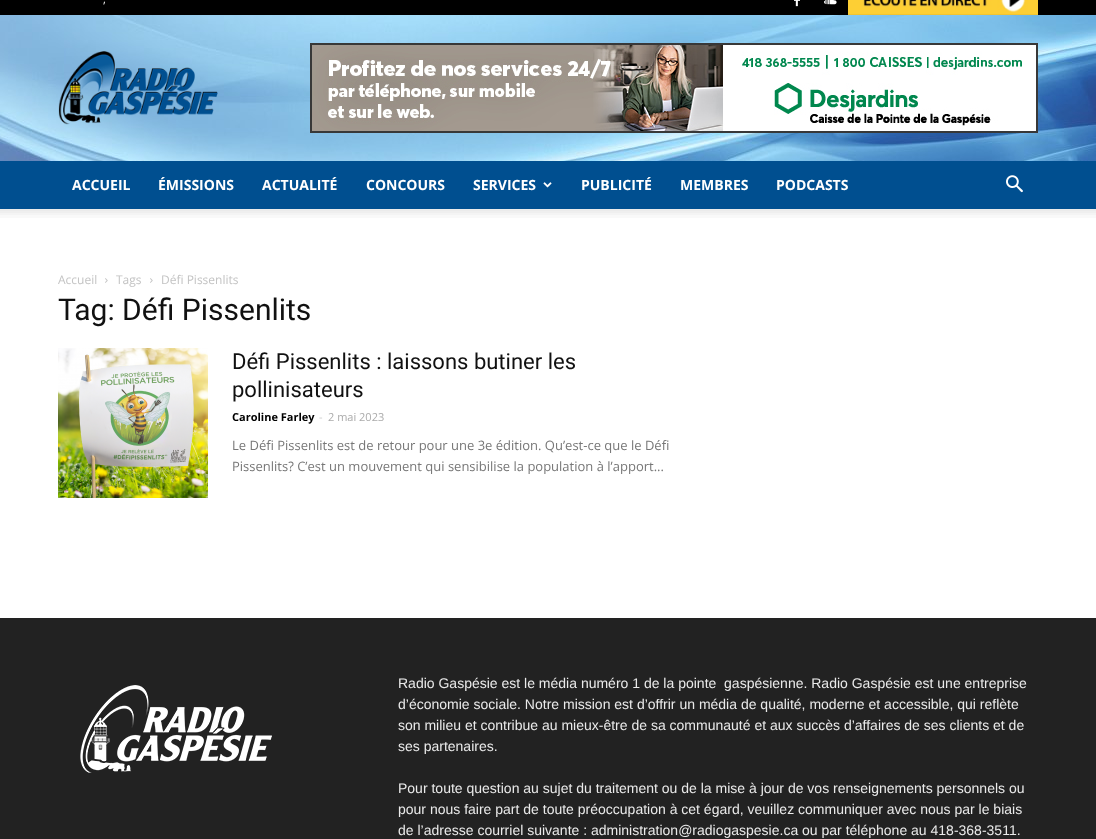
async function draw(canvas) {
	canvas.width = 1096;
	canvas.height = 839;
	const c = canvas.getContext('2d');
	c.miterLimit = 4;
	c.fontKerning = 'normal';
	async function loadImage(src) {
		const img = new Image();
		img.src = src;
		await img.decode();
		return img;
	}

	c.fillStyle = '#fff';
	c.fillRect(0, 0, 1096, 839);
	c.drawImage(await loadImage('img1.png'), 0, 15, 1096, 146);
	c.fillStyle = '#000';
	c.fillRect(0, 0, 1096, 15);
	c.font = '11px Open Sans';
	c.fillStyle = '#fff';
	c.fillText(',', 103, 3);
	c.drawImage(await loadImage('img2.png'), 794, 0, 6, 7);
	c.drawImage(await loadImage('img3.png'), 824, 0, 13, 5);
	c.drawImage(await loadImage('img4.png'), 848, 0, 190, 15);
	c.drawImage(await loadImage('img5.png'), 58, 51, 160, 74);
	c.drawImage(await loadImage('img6.png'), 310, 43, 728, 90);
	c.fillStyle = '#004f90';
	c.fillRect(0, 161, 1096, 48);
	c.font = 'bold 14px Open Sans';
	c.fillStyle = '#fff';
	for (const [text, x, y] of [
		['ACCUEIL', 72, 190],
		['ÉMISSIONS', 158, 190],
		['ACTUALITÉ', 262, 190],
		['CONCOURS', 366, 190],
		['SERVICES', 473, 190],
	]) {
		c.fillText(text, x, y);
	}
	c.drawImage(await loadImage('img7.png'), 543, 182, 9, 6);
	for (const [text, x, y] of [
		['PUBLICITÉ', 581, 190],
		['MEMBRES', 680, 190],
		['PODCASTS', 776, 190],
	]) {
		c.fillText(text, x, y);
	}
	c.drawImage(await loadImage('img8.png'), 1006, 175, 17, 18);
	c.drawImage(await loadImage('img9.png'), 0, 209, 1096, 9);
	c.font = '12px Open Sans';
	c.fillStyle = '#c3c3c3';
	c.fillText('Accueil', 58, 284);
	c.drawImage(await loadImage('img10.png'), 105, 278, 3, 5);
	c.fillText('Tags', 116, 284);
	c.drawImage(await loadImage('img10.png'), 150, 278, 3, 5);
	c.fillText('Défi Pissenlits', 161, 284);
	c.font = '30px Roboto';
	c.fillStyle = '#111';
	c.fillText('Tag: Défi Pissenlits', 58, 320);
	c.drawImage(await loadImage('img11.png'), 58, 348, 150, 150);
	c.font = '22px Roboto';
	c.fillText('Défi Pissenlits : laissons butiner les', 232, 369);
	c.fillText('pollinisateurs', 232, 397);
	c.font = 'bold 11px Open Sans';
	c.fillStyle = '#000';
	c.fillText('Caroline Farley', 232, 421);
	c.font = '11px Open Sans';
	c.fillStyle = '#ccc';
	c.fillText('-', 319, 421);
	c.fillStyle = '#aaa';
	c.fillText('2 mai 2023', 328, 421);
	c.font = '13px Open Sans';
	c.fillStyle = '#777';
	c.fillText('Le Défi Pissenlits est de retour pour une 3e édition. Qu’est-ce que le Défi', 232, 450);
	c.fillText('Pissenlits? C’est un mouvement qui sensibilise la population à l’apport...', 232, 471);
	c.fillStyle = '#222';
	c.fillRect(0, 618, 1096, 221);
	c.drawImage(await loadImage('img12.png'), 80, 685, 192, 88);
	c.font = '14px Liberation Sans';
	c.fillStyle = '#eaeaea';
	for (const [text, x, y] of [
		['Radio Gaspésie est le média numéro 1 de la pointe  gaspésienne. Radio Gaspésie est une entreprise', 398, 688],
		['d’économie sociale. Notre mission est d’offrir un média de qualité, moderne et accessible, qui reflète', 398, 709],
		['son milieu et contribue au mieux-être de sa communauté et aux succès d’affaires de ses clients et de', 398, 730],
		['ses partenaires.', 398, 751],
		['Pour toute question au sujet du traitement ou de la mise à jour de vos renseignements personnels ou', 398, 793],
		['pour nous faire part de toute préoccupation à cet égard, veuillez communiquer avec nous par le biais', 398, 814],
		['de l’adresse courriel suivante : administration@radiogaspesie.ca ou par téléphone au 418-368-3511.', 398, 835],
	]) {
		c.fillText(text, x, y);
	}
}

draw(document.querySelector('canvas'));
